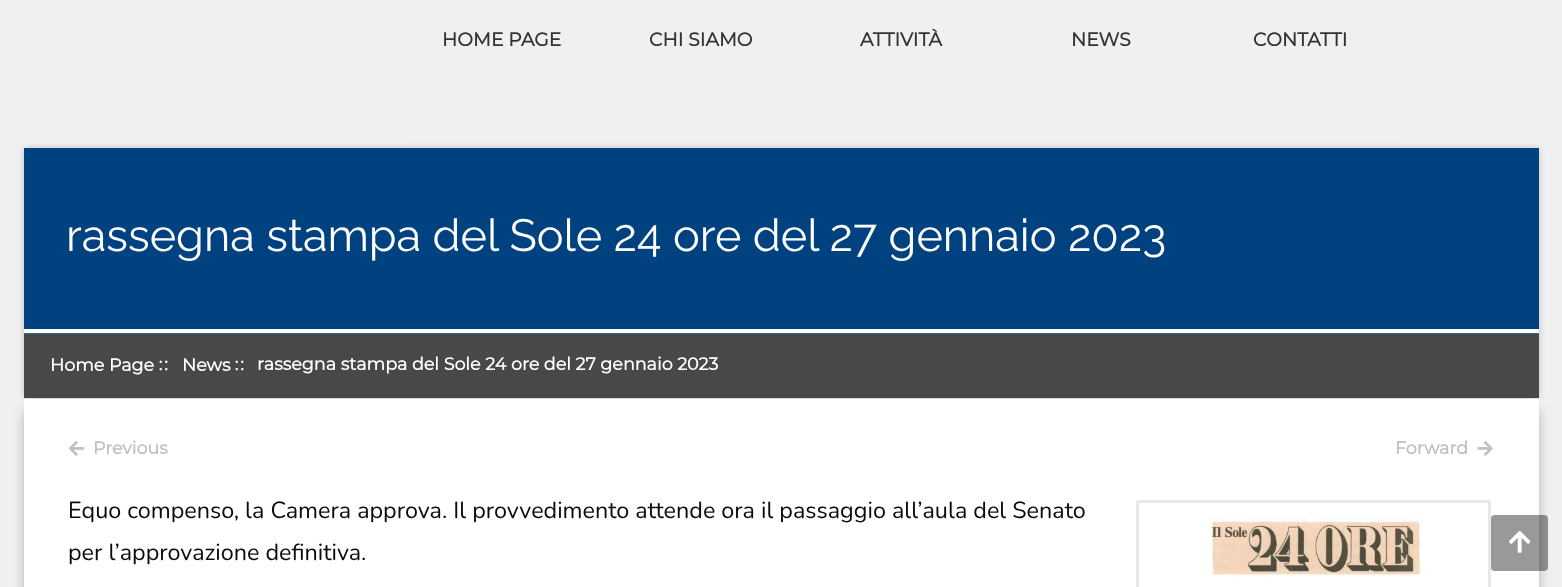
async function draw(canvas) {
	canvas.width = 1562;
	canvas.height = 587;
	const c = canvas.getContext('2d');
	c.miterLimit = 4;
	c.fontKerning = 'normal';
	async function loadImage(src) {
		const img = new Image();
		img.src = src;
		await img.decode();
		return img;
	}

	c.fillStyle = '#f0f0f0';
	c.fillRect(0, 0, 1562, 587);
	c.fillStyle = '#00000033';
	c.filter = 'blur(3px)';
	c.beginPath();
	c.roundRect(24, 148, 1515, 250, 4);
	c.fill();
	c.filter = 'none';
	c.fillStyle = '#f0f0f0';
	c.fillRect(401, 143, 999, 1);
	c.font = 'bold 18.75px Montserrat';
	c.fillStyle = '#333';
	for (const [text, x, y] of [
		['HOME PAGE', 442, 46],
		['CHI SIAMO', 649, 46],
		['ATTIVITÀ', 860, 46],
		['NEWS', 1071, 46],
		['CONTATTI', 1253, 46],
	]) {
		c.fillText(text, x, y);
	}
	c.fillStyle = '#00427f';
	c.fillRect(24, 148, 1515, 181);
	c.font = '45px Raleway';
	c.fillStyle = '#fff';
	c.fillText('rassegna stampa del Sole 24 ore del 27 gennaio 2023', 66, 251);
	for (const [x, y, w, h, color] of [
		[24, 329, 1515, 4, '#fff'],
		[24, 333, 1515, 1, '#336899'],
		[24, 334, 1515, 64, '#484848'],
	]) {
		c.fillStyle = color;
		c.fillRect(x, y, w, h);
	}
	c.font = 'bold 17.5px Montserrat';
	c.fillStyle = '#fff';
	c.fillText('Home Page', 50, 371);
	c.font = '20px Liberation Serif';
	c.fillText('::', 158, 370);
	c.font = 'bold 17.5px Montserrat';
	c.fillText('News', 182, 371);
	c.font = '20px Liberation Serif';
	c.fillText('::', 234, 370);
	c.font = 'bold 17.5px Montserrat';
	c.fillText('rassegna stampa del Sole 24 ore del 27 gennaio 2023', 257, 370);
	c.fillStyle = '#00000040';
	c.filter = 'blur(6px)';
	c.beginPath();
	c.rect(24, 411, 1490, 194);
	c.fill();
	c.filter = 'none';
	c.filter = 'blur(6px)';
	c.beginPath();
	c.rect(49, 411, 1490, 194);
	c.fill();
	c.filter = 'none';
	c.fillStyle = '#fff';
	c.fillRect(24, 399, 1515, 188);
	c.drawImage(await loadImage('img1.png'), 68, 441, 17, 15);
	c.fillStyle = '#c0c0c0';
	c.fillText('Previous', 93, 454);
	c.fillText('Forward', 1395, 454);
	c.drawImage(await loadImage('img2.png'), 1477, 441, 16, 15);
	c.font = '23.35px Nunito';
	c.fillStyle = '#0b0b0b';
	c.fillText('Equo compenso, la Camera approva. Il provvedimento attende ora il passaggio all’aula del Senato', 68, 518);
	c.fillText('per l’approvazione definitiva.', 68, 560);
	c.beginPath();
	c.roundRect(1137.5, 501.5, 352, 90, 1);
	c.strokeStyle = '#e8e8e8';
	c.lineWidth = 3;
	c.stroke();
	c.drawImage(await loadImage('img3.png'), 1209, 517, 212, 60);
	c.fillStyle = '#00000066';
	c.beginPath();
	c.roundRect(1491, 515, 57, 56, 4);
	c.fill();
	c.drawImage(await loadImage('img4.png'), 1509, 531, 22, 22);
}

draw(document.querySelector('canvas'));
